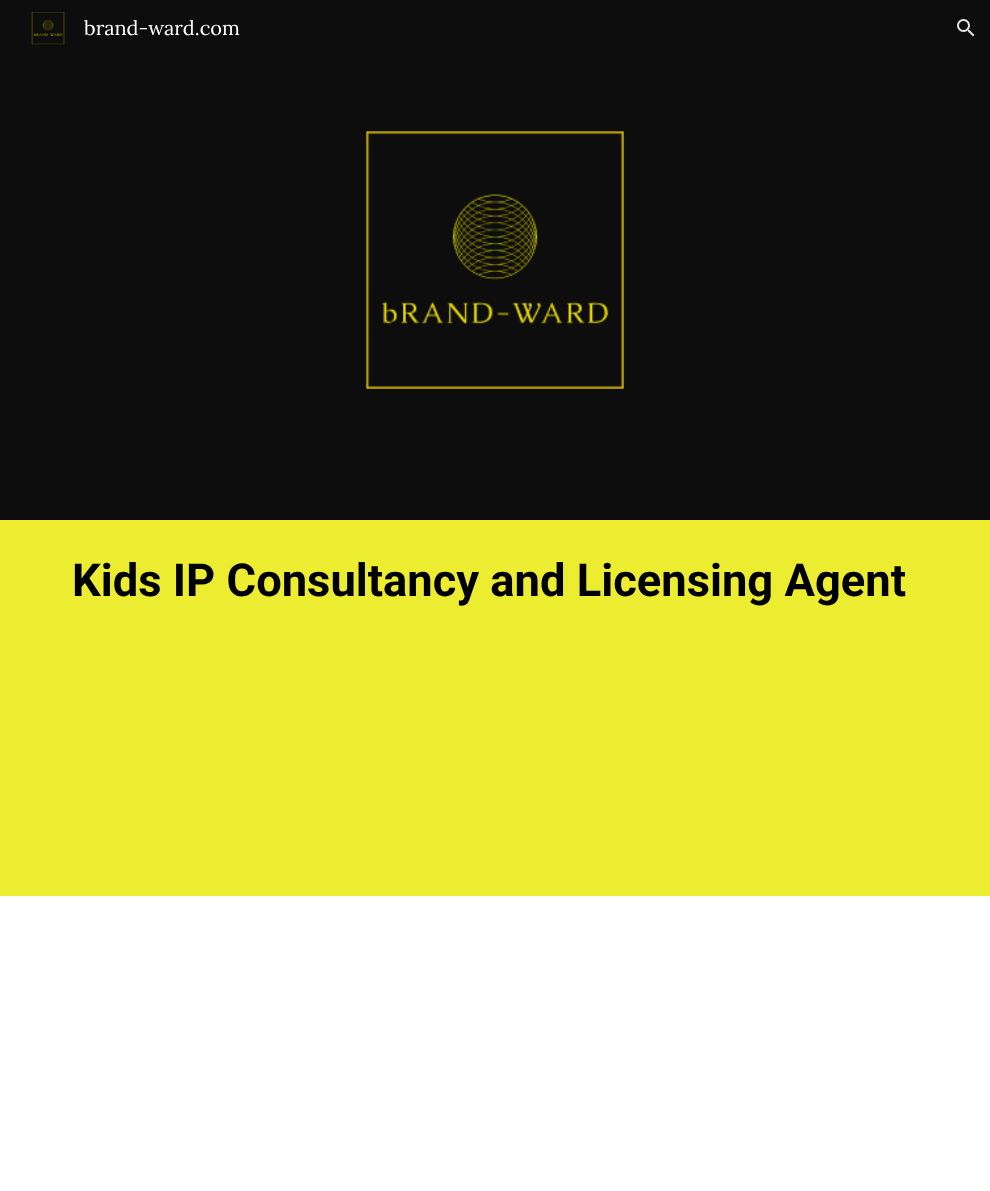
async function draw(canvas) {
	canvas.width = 990;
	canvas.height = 1191;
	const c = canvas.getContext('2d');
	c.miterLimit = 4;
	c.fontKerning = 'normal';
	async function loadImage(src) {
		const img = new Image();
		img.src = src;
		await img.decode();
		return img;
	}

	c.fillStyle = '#fff';
	c.fillRect(0, 0, 990, 1191);
	c.drawImage(await loadImage('img3.png'), 0, 0, 990, 520);
	c.drawImage(await loadImage('img1.png'), 31, 12, 34, 33);
	c.font = '20px Lora';
	c.fillText('brand-ward.com', 84, 35);
	c.drawImage(await loadImage('img2.png'), 957, 19, 18, 18);
	c.fillStyle = '#ecec31';
	c.fillRect(0, 520, 990, 376);
	c.font = 'bold 45.3px Roboto';
	c.fillStyle = '#000';
	c.fillText('Kids IP Consultancy and Licensing Agent', 72, 596);
}

draw(document.querySelector('canvas'));
